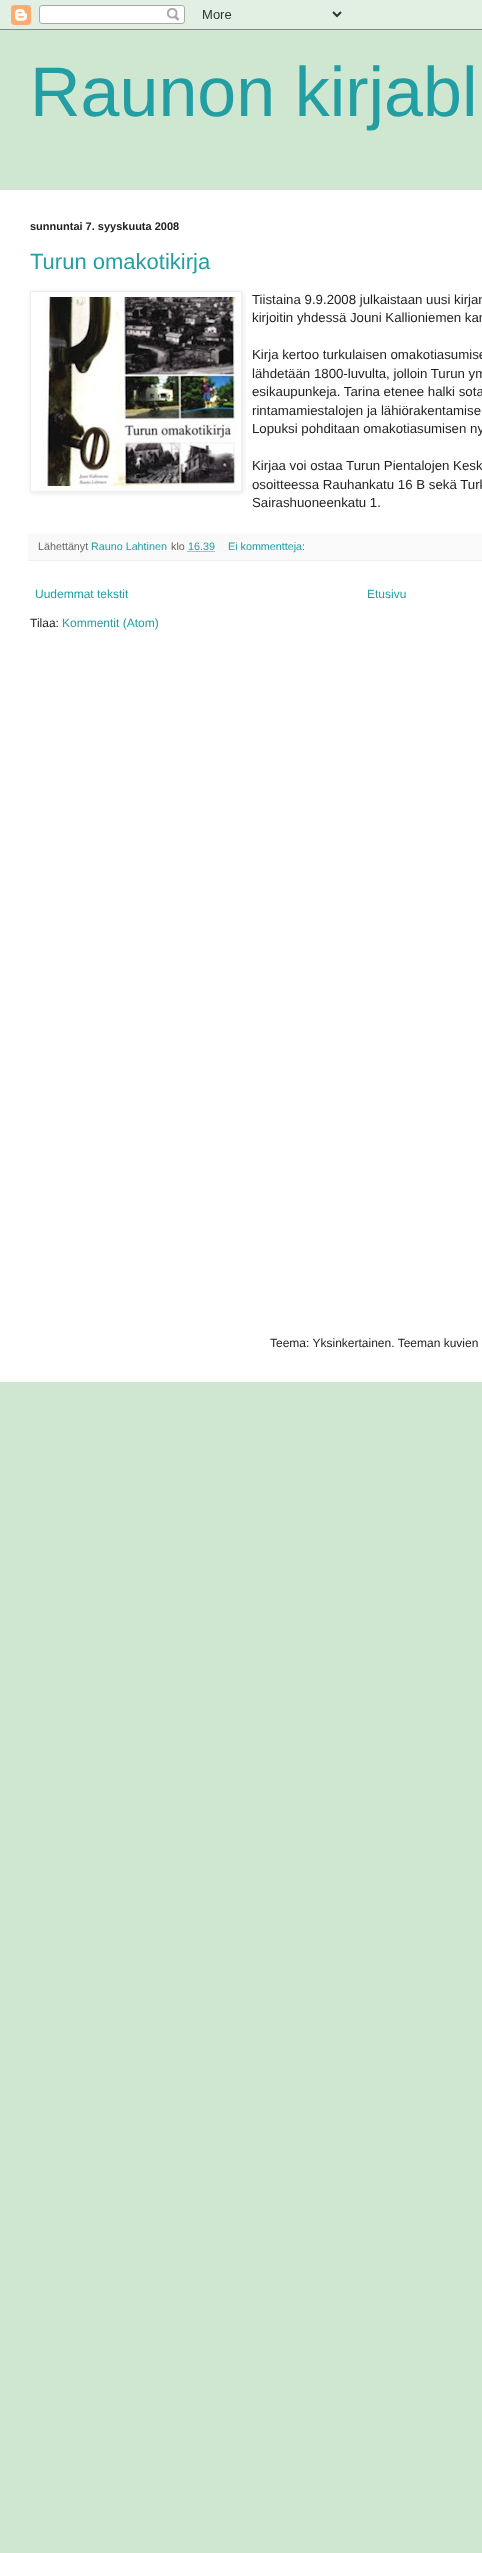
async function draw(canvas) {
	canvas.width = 482;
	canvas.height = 2553;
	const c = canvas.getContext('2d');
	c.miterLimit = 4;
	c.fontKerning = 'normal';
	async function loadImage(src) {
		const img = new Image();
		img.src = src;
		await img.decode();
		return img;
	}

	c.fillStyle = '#cfe7d1';
	c.fillRect(0, 0, 482, 2553);
	c.drawImage(await loadImage('img1.png'), 0, 0, 482, 30);
	c.font = '70px Liberation Sans';
	c.fillStyle = '#239ea3';
	c.fillText('Raunon kirjabl', 30, 116);
	c.fillStyle = '#fff';
	c.fillRect(0, 190, 482, 1192);
	c.fillStyle = '#ddd';
	c.fillRect(0, 189, 482, 1);
	c.font = 'bold 11px Liberation Sans';
	c.fillStyle = '#222';
	c.fillText('sunnuntai 7. syyskuuta 2008', 30, 230);
	c.font = '22px Liberation Sans';
	c.fillStyle = '#239ea3';
	c.fillText('Turun omakotikirja', 30, 269);
	c.save();
	c.beginPath();
	c.moveTo(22, 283);
	c.lineTo(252, 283);
	c.lineTo(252, 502);
	c.lineTo(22, 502);
	c.closePath();
	c.moveTo(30, 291);
	c.lineTo(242, 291);
	c.lineTo(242, 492);
	c.lineTo(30, 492);
	c.closePath();
	c.clip('evenodd');
	c.fillStyle = '#0000001a';
	c.filter = 'blur(2.5px)';
	c.beginPath();
	c.rect(31, 292, 212, 201);
	c.fill();
	c.filter = 'none';
	c.restore();
	c.strokeStyle = '#eee';
	c.strokeRect(30.5, 291.5, 211, 200);
	c.drawImage(await loadImage('img2.png'), 41, 297, 195, 189);
	c.font = '13.25px Liberation Sans';
	c.fillStyle = '#222';
	for (const [text, x, y] of [
		['Tiistaina 9.9.2008 julkaistaan uusi kirjan', 252, 304],
		['kirjoitin yhdessä Jouni Kallioniemen kan', 252, 322],
		['Kirja kertoo turkulaisen omakotiasumise', 252, 359],
		['lähdetään 1800-luvulta, jolloin Turun ym', 252, 378],
		['esikaupunkeja. Tarina etenee halki sota', 252, 396],
		['rintamamiestalojen ja lähiörakentamise', 252, 415],
		['Lopuksi pohditaan omakotiasumisen ny', 252, 433],
		['Kirjaa voi ostaa Turun Pientalojen Kesk', 252, 470],
		['osoitteessa Rauhankatu 16 B sekä Turk', 252, 489],
		['Sairashuoneenkatu 1.', 252, 507],
	]) {
		c.fillText(text, x, y);
	}
	c.fillStyle = '#f9f9f9';
	c.fillRect(28, 533, 454, 27);
	c.fillStyle = '#eee';
	c.fillRect(28, 560, 454, 1);
	c.font = '10.75px Liberation Sans';
	c.fillStyle = '#666';
	c.fillText('Lähettänyt', 38, 550);
	c.fillStyle = '#239ea3';
	c.fillText('Rauno Lahtinen', 91, 550);
	c.fillStyle = '#666';
	c.fillText('klo', 171, 550);
	c.fillStyle = '#239ea3';
	c.fillText('16.39', 188, 550);
	c.beginPath();
	c.moveTo(187.5, 551.5);
	c.lineTo(214.5, 551.5);
	c.strokeStyle = '#239ea3';
	c.setLineDash([1, 1]);
	c.stroke();
	c.fillText('Ei kommentteja:', 228, 550);
	c.font = '12px Liberation Sans';
	c.fillText('Uudemmat tekstit', 35, 598);
	c.fillText('Etusivu', 367, 598);
	c.fillStyle = '#222';
	c.fillText('Tilaa:', 30, 627);
	c.fillStyle = '#239ea3';
	c.fillText('Kommentit (Atom)', 62, 627);
	c.fillStyle = '#222';
	c.fillText('Teema: Yksinkertainen. Teeman kuvien', 270, 1347);
}

draw(document.querySelector('canvas'));
